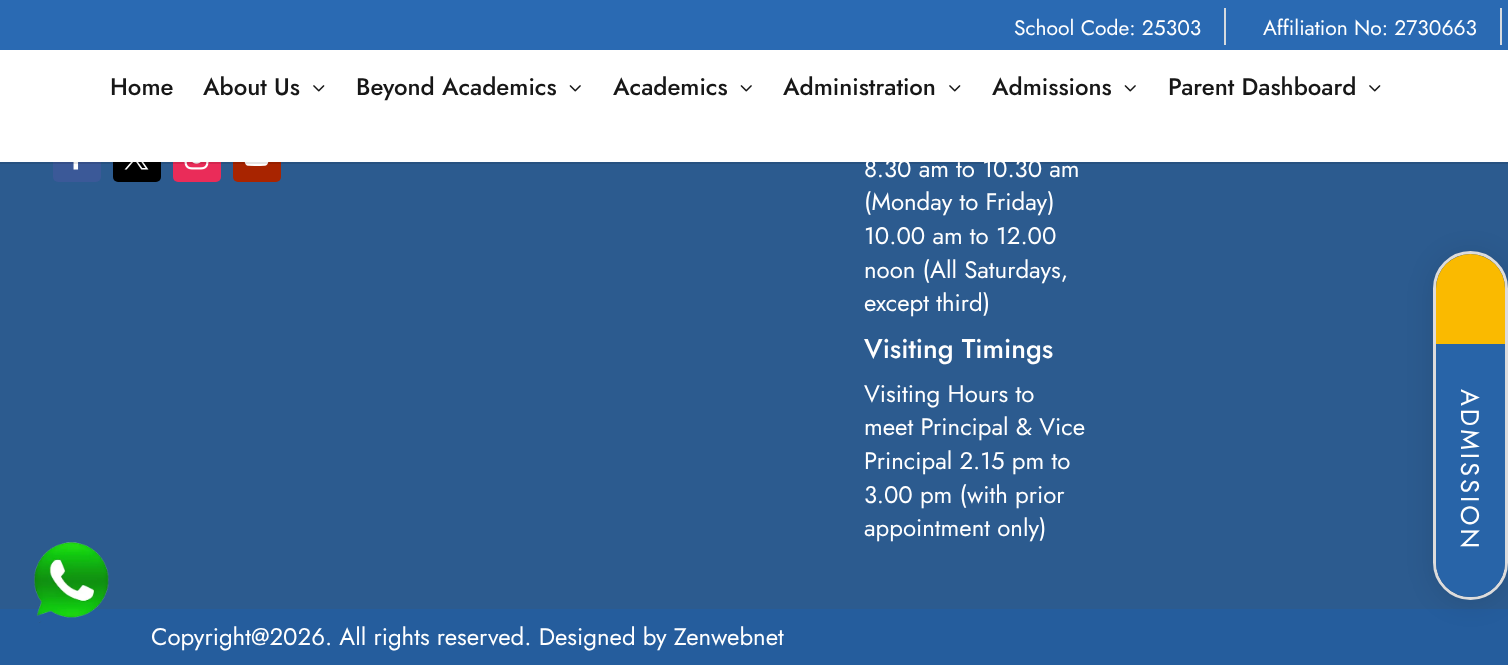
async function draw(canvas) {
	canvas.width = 1508;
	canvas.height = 665;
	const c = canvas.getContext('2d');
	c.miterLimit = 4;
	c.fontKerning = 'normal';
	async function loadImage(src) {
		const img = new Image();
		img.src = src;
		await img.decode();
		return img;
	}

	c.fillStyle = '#2c5b8f';
	c.fillRect(0, 0, 1508, 665);
	c.fillStyle = '#2a6ab3';
	c.fillRect(0, 0, 1508, 45);
	c.fillStyle = '#d5dadf';
	c.fillRect(1224, 8, 2, 39);
	c.font = '21px Jost';
	c.fillStyle = '#fff';
	c.fillText('School Code: 25303', 1014, 35);
	c.fillStyle = '#d5dadf';
	c.fillRect(1500, 8, 2, 39);
	c.fillStyle = '#fff';
	c.fillText('Affiliation No: 2730663', 1263, 35);
	c.fillStyle = '#3b5998';
	c.beginPath();
	c.roundRect(53, 134, 48, 48, 5);
	c.fill();
	c.drawImage(await loadImage('img3.png'), 73, 162, 6, 8);
	c.fillStyle = '#000';
	c.beginPath();
	c.roundRect(113, 134, 48, 48, 5);
	c.fill();
	c.drawImage(await loadImage('img4.png'), 124, 162, 25, 8);
	c.fillStyle = '#ea2c59';
	c.beginPath();
	c.roundRect(173, 134, 48, 48, 5);
	c.fill();
	c.drawImage(await loadImage('img5.png'), 184, 162, 25, 8);
	c.fillStyle = '#a82400';
	c.beginPath();
	c.roundRect(233, 134, 48, 48, 5);
	c.fill();
	c.drawImage(await loadImage('img6.png'), 244, 162, 25, 4);
	for (const [x, y, w, h, color] of [
		[0, 162, 1508, 2, '#0000001a'],
		[0, 50, 1508, 112, '#fff'],
		[0, 45, 1508, 5, '#2a6ab3'],
	]) {
		c.fillStyle = color;
		c.fillRect(x, y, w, h);
	}
	c.font = '500 24px Jost';
	c.fillStyle = '#171717';
	c.fillText('Home', 110, 95);
	c.fillText('About Us', 203, 95);
	c.drawImage(await loadImage('img1.png'), 313, 85, 12, 7);
	c.fillText('Beyond Academics', 356, 95);
	c.drawImage(await loadImage('img2.png'), 569, 85, 12, 7);
	c.fillText('Academics', 613, 95);
	c.drawImage(await loadImage('img2.png'), 740, 85, 12, 7);
	c.fillText('Administration', 783, 95);
	c.drawImage(await loadImage('img1.png'), 949, 85, 12, 7);
	c.fillText('Admissions', 992, 95);
	c.drawImage(await loadImage('img2.png'), 1124, 85, 12, 7);
	c.fillText('Parent Dashboard', 1168, 95);
	c.drawImage(await loadImage('img1.png'), 1369, 85, 12, 7);
	c.font = '24px Jost';
	c.fillStyle = '#fff';
	for (const [text, x, y] of [
		['8.30 am to 10.30 am', 864, 177],
		['(Monday to Friday)', 864, 210],
		['10.00 am to 12.00', 864, 244],
		['noon (All Saturdays,', 864, 278],
		['except third)', 864, 311],
	]) {
		c.fillText(text, x, y);
	}
	c.font = '500 27px Jost';
	c.fillText('Visiting Timings', 864, 358);
	c.font = '24px Jost';
	for (const [text, x, y] of [
		['Visiting Hours to', 864, 402],
		['meet Principal & Vice', 864, 435],
		['Principal 2.15 pm to', 864, 469],
		['3.00 pm (with prior', 864, 503],
		['appointment only)', 864, 536],
	]) {
		c.fillText(text, x, y);
	}
	c.fillStyle = '#255d9d';
	c.fillRect(0, 609, 1508, 56);
	c.fillStyle = '#fff';
	c.fillText('Copyright@2026. All rights reserved. Designed by Zenwebnet', 151, 645);
	c.fillStyle = '#0000001c';
	c.filter = 'blur(13.5px)';
	c.beginPath();
	c.roundRect(1433, 254, 75, 349, 37.5);
	c.fill();
	c.filter = 'none';
	c.beginPath();
	c.roundRect(1434.5, 252.5, 72, 346, 36);
	c.strokeStyle = '#dddcdc';
	c.lineWidth = 3;
	c.stroke();
	c.fillStyle = '#faba00';
	c.beginPath();
	c.roundRect(1436, 254, 69, 90, [34.5, 34.5, 0, 0]);
	c.fill();
	c.fillStyle = '#2864a8';
	c.beginPath();
	c.roundRect(1436, 344, 69, 253, [0, 0, 34.5, 34.5]);
	c.fill();
	c.letterSpacing = '3px';
	c.font = '25.5px Jost';
	c.fillStyle = '#fff';
	c.save();
	c.translate(1461, 389);
	c.rotate(90 * Math.PI / 180);
	c.fillText('ADMISSION', 0, 0);
	c.restore();
	c.drawImage(await loadImage('img7.png'), 34, 542, 75, 81);
}

draw(document.querySelector('canvas'));
